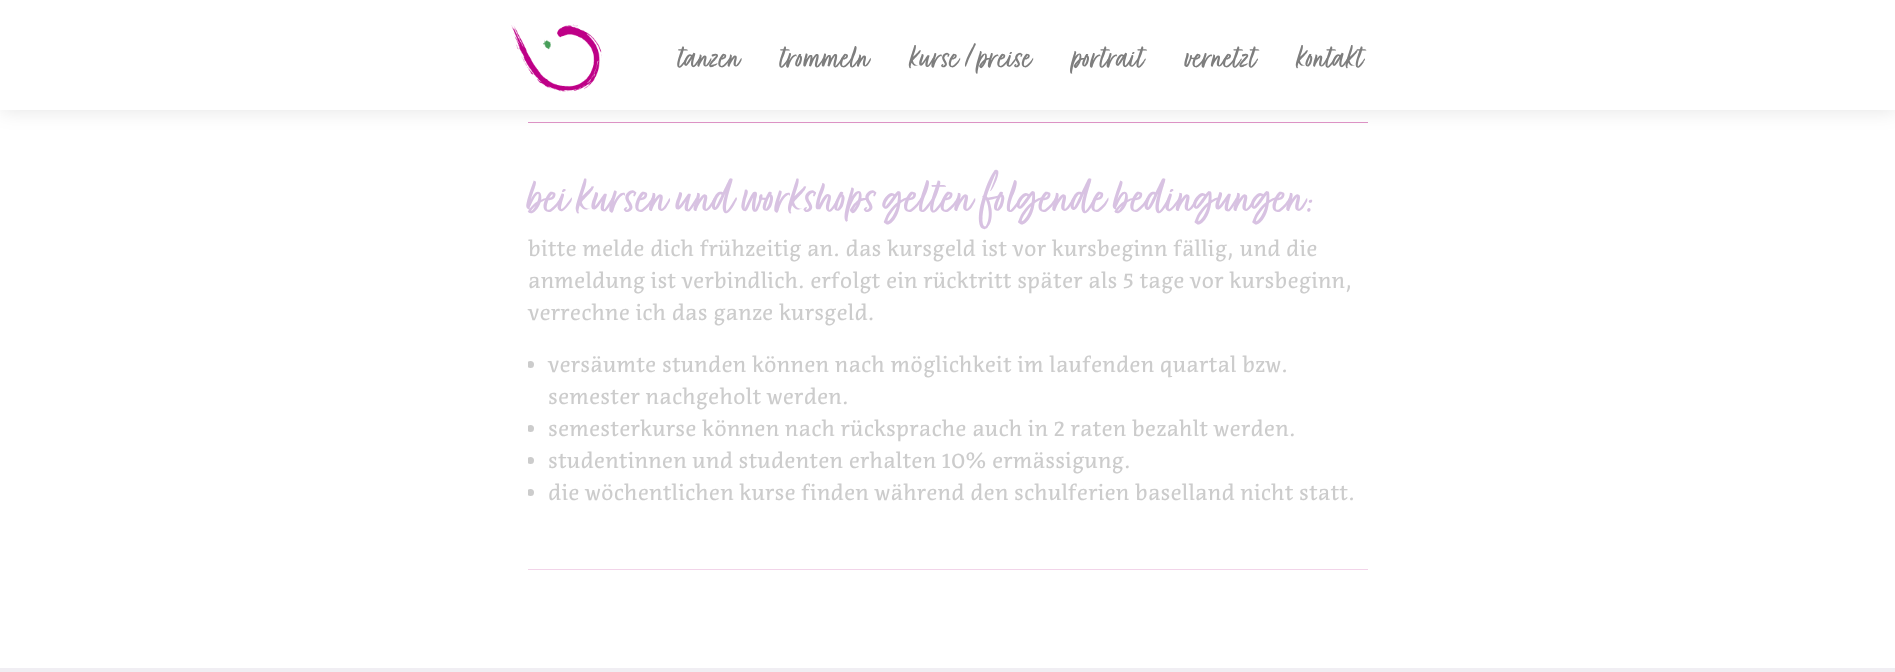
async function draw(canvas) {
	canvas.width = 1895;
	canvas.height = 672;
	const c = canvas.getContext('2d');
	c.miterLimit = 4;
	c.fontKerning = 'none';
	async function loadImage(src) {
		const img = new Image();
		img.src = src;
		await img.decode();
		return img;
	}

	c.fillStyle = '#f0eef3';
	c.fillRect(0, 0, 1895, 672);
	c.fillStyle = '#fff';
	c.fillRect(0, 110, 1895, 558);
	c.fillStyle = '#df94c7';
	c.fillRect(528, 122, 840, 1);
	c.fillStyle = '#0000001a';
	c.filter = 'blur(10px)';
	c.beginPath();
	c.rect(1, 1, 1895, 110);
	c.fill();
	c.filter = 'none';
	c.fillStyle = '#fff';
	c.fillRect(0, 0, 1895, 110);
	c.drawImage(await loadImage('img1.png'), 511, 24, 91, 68);
	c.letterSpacing = '0.2px';
	c.font = '40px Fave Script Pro';
	c.fillStyle = '#7e7e7e';
	for (const [text, x, y] of [
		['tanzen', 678, 68],
		['trommeln', 780, 68],
		['kurse /preise', 910, 68],
		['portrait', 1072, 68],
		['vernetzt', 1185, 68],
		['kontakt', 1297, 68],
	]) {
		c.fillText(text, x, y);
	}
	c.font = '60px Fave Script Pro';
	c.fillStyle = '#d8c2e2';
	c.fillText('bei kursen und workshops gelten folgende bedingungen:', 528, 213);
	c.font = '22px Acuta';
	c.fillStyle = '#ccc';
	for (const [text, x, y] of [
		['bitte melde dich frühzeitig an. das kursgeld ist vor kursbeginn fällig, und die', 528, 256],
		['anmeldung ist verbindlich. erfolgt ein rücktritt später als 5 tage vor kursbeginn,', 528, 288],
		['verrechne ich das ganze kursgeld.', 528, 320],
	]) {
		c.fillText(text, x, y);
	}
	c.save();
	c.beginPath();
	c.rect(528, 349, 840, 160);
	c.clip();
	c.beginPath();
	c.arc(530.5, 364.5, 3.5, 0, 2 * Math.PI);
	c.fill();
	c.restore();
	c.fillText('versäumte stunden können nach möglichkeit im laufenden quartal bzw.', 548, 372);
	c.fillText('semester nachgeholt werden.', 548, 404);
	c.save();
	c.beginPath();
	c.rect(528, 349, 840, 160);
	c.clip();
	c.beginPath();
	c.arc(530.5, 428.5, 3.5, 0, 2 * Math.PI);
	c.fill();
	c.restore();
	c.fillText('semesterkurse können nach rücksprache auch in 2 raten bezahlt werden.', 548, 436);
	c.save();
	c.beginPath();
	c.rect(528, 349, 840, 160);
	c.clip();
	c.beginPath();
	c.arc(530.5, 460.5, 3.5, 0, 2 * Math.PI);
	c.fill();
	c.restore();
	c.fillText('studentinnen und studenten erhalten 10% ermässigung.', 548, 468);
	c.save();
	c.beginPath();
	c.rect(528, 349, 840, 160);
	c.clip();
	c.beginPath();
	c.arc(530.5, 492.5, 3.5, 0, 2 * Math.PI);
	c.fill();
	c.restore();
	c.fillText('die wöchentlichen kurse finden während den schulferien baselland nicht statt.', 548, 500);
	c.fillStyle = '#f2d4e9';
	c.fillRect(528, 569, 840, 1);
}

draw(document.querySelector('canvas'));
